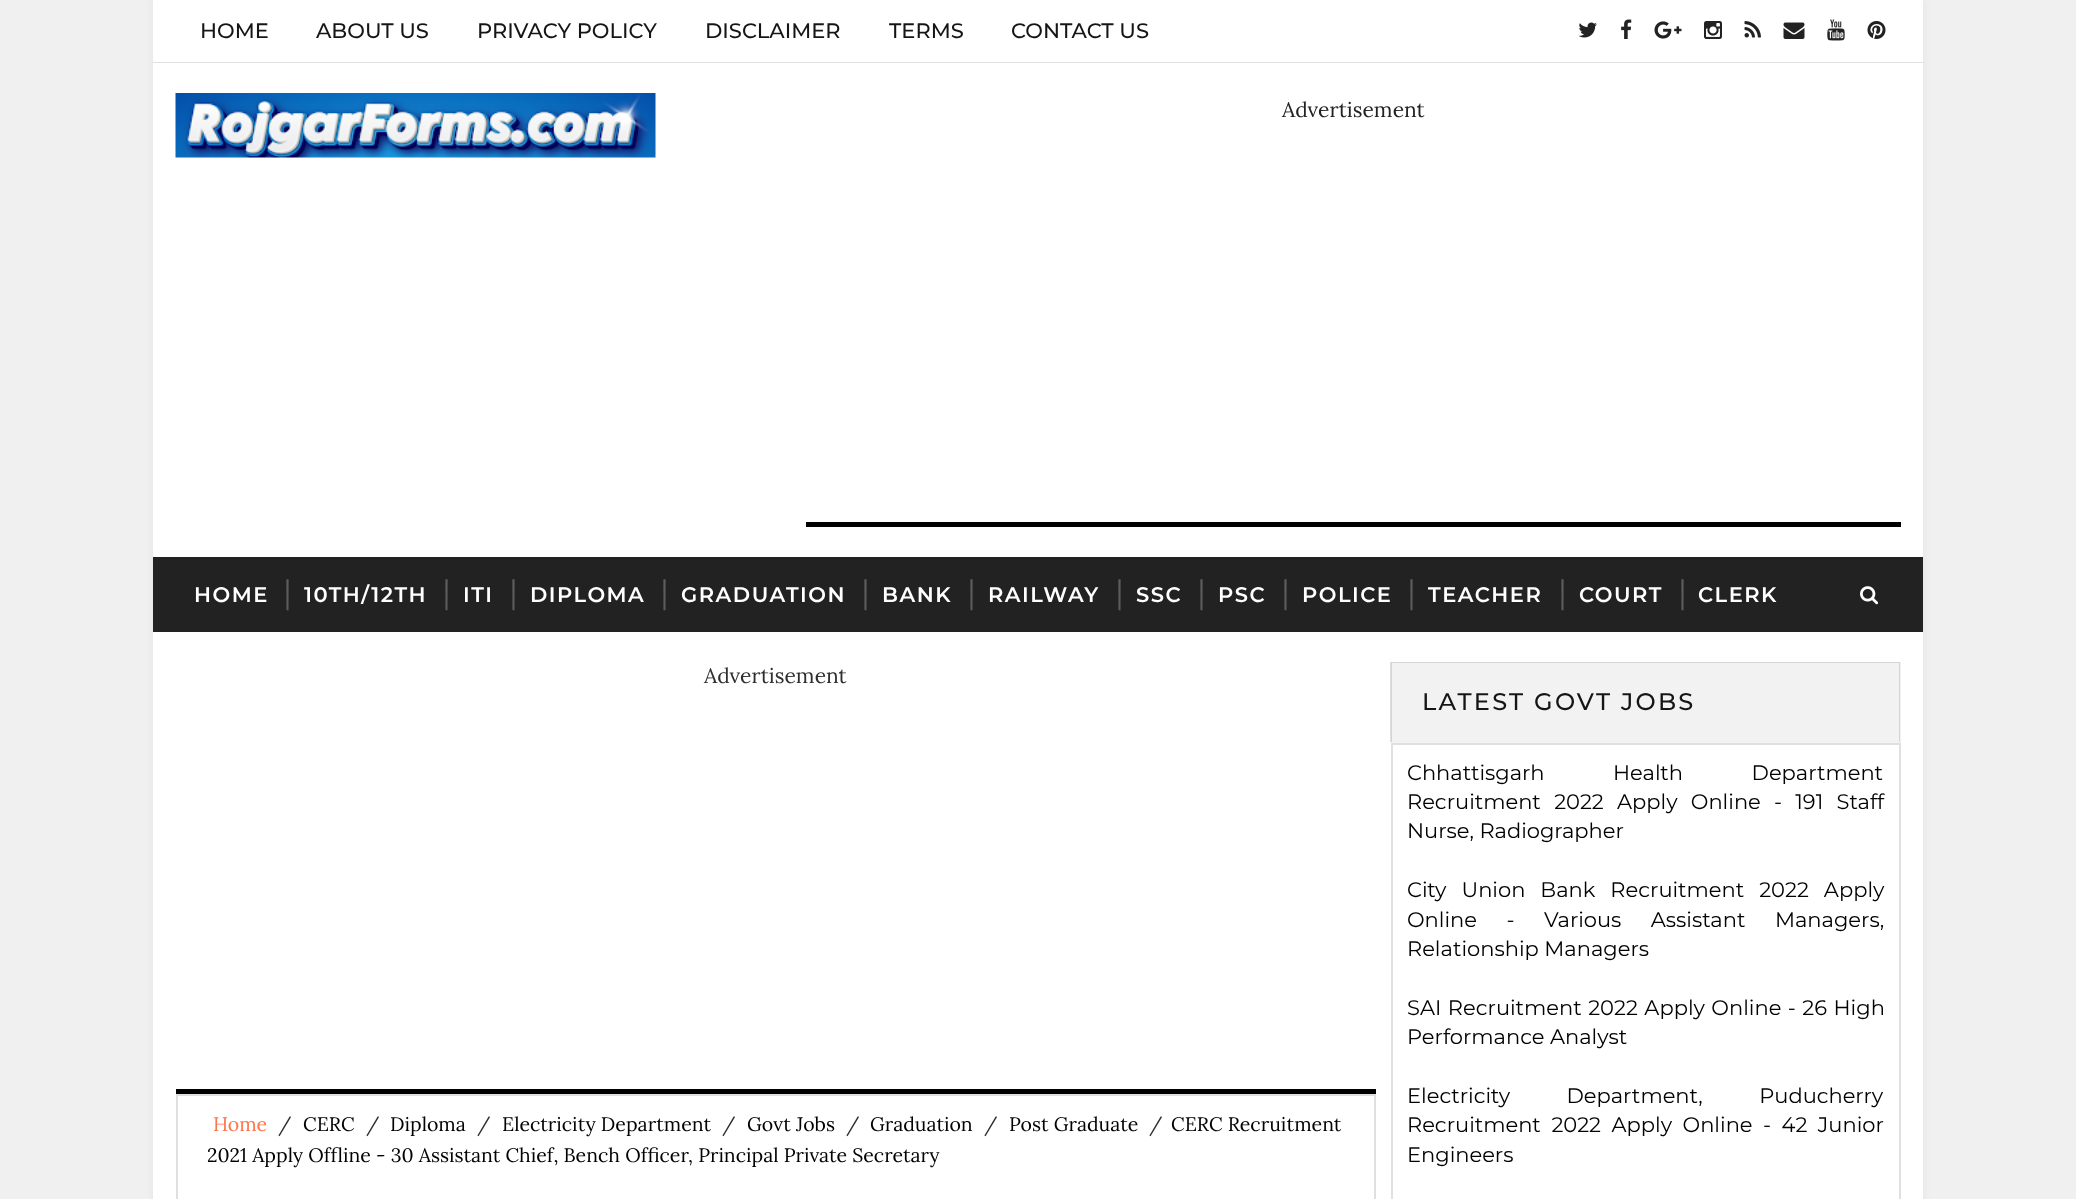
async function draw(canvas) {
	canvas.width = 2076;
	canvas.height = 1199;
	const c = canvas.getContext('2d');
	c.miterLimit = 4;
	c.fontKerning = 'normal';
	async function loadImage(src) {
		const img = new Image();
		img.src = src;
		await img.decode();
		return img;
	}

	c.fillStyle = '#f0f0f0';
	c.fillRect(0, 0, 2076, 1199);
	c.fillStyle = '#0000000d';
	c.filter = 'blur(4px)';
	c.beginPath();
	c.rect(153, 0, 1770, 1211);
	c.fill();
	c.filter = 'none';
	c.fillStyle = '#fff';
	c.fillRect(153, 0, 1770, 1199);
	c.fillStyle = '#e0e0e0';
	c.fillRect(153, 62, 1770, 1);
	c.font = '500 21px Montserrat';
	c.fillStyle = '#151515';
	for (const [text, x, y] of [
		['HOME', 200, 38],
		['ABOUT US', 316, 38],
		['PRIVACY POLICY', 477, 38],
		['DISCLAIMER', 705, 38],
		['TERMS', 889, 38],
		['CONTACT US', 1011, 38],
	]) {
		c.fillText(text, x, y);
	}
	c.drawImage(await loadImage('img1.png'), 1578, 22, 19, 16);
	c.drawImage(await loadImage('img2.png'), 1621, 19, 11, 20);
	c.drawImage(await loadImage('img3.png'), 1654, 21, 28, 18);
	c.drawImage(await loadImage('img4.png'), 1704, 21, 18, 18);
	c.drawImage(await loadImage('img5.png'), 1744, 21, 17, 17);
	c.drawImage(await loadImage('img6.png'), 1783, 22, 22, 17);
	c.drawImage(await loadImage('img7.png'), 1827, 19, 18, 22);
	c.drawImage(await loadImage('img8.png'), 1867, 21, 19, 18);
	c.drawImage(await loadImage('img9.png'), 175, 93, 481, 65);
	c.font = '21px Lora';
	c.fillStyle = '#222';
	c.fillText('Advertisement', 1282, 117);
	c.fillStyle = '#000';
	c.fillRect(806, 522, 1095, 5);
	c.fillStyle = '#222';
	c.fillRect(153, 557, 1770, 75);
	c.letterSpacing = '1.5px';
	c.font = '600 21px Montserrat';
	c.fillStyle = '#fff';
	c.fillText('HOME', 194, 602);
	c.letterSpacing = '0px';
	c.font = '30px Lora';
	c.fillStyle = '#5c5c5c';
	c.fillText('|', 284, 602);
	c.letterSpacing = '1.5px';
	c.font = '600 21px Montserrat';
	c.fillStyle = '#fff';
	c.fillText('10TH/12TH', 304, 602);
	c.letterSpacing = '0px';
	c.font = '30px Lora';
	c.fillStyle = '#5c5c5c';
	c.fillText('|', 443, 602);
	c.letterSpacing = '1.5px';
	c.font = '600 21px Montserrat';
	c.fillStyle = '#fff';
	c.fillText('ITI', 463, 602);
	c.letterSpacing = '0px';
	c.font = '30px Lora';
	c.fillStyle = '#5c5c5c';
	c.fillText('|', 510, 602);
	c.letterSpacing = '1.5px';
	c.font = '600 21px Montserrat';
	c.fillStyle = '#fff';
	c.fillText('DIPLOMA', 530, 602);
	c.letterSpacing = '0px';
	c.font = '30px Lora';
	c.fillStyle = '#5c5c5c';
	c.fillText('|', 661, 602);
	c.letterSpacing = '1.5px';
	c.font = '600 21px Montserrat';
	c.fillStyle = '#fff';
	c.fillText('GRADUATION', 681, 602);
	c.letterSpacing = '0px';
	c.font = '30px Lora';
	c.fillStyle = '#5c5c5c';
	c.fillText('|', 862, 602);
	c.letterSpacing = '1.5px';
	c.font = '600 21px Montserrat';
	c.fillStyle = '#fff';
	c.fillText('BANK', 882, 602);
	c.letterSpacing = '0px';
	c.font = '30px Lora';
	c.fillStyle = '#5c5c5c';
	c.fillText('|', 968, 602);
	c.letterSpacing = '1.5px';
	c.font = '600 21px Montserrat';
	c.fillStyle = '#fff';
	c.fillText('RAILWAY', 988, 602);
	c.letterSpacing = '0px';
	c.font = '30px Lora';
	c.fillStyle = '#5c5c5c';
	c.fillText('|', 1116, 602);
	c.letterSpacing = '1.5px';
	c.font = '600 21px Montserrat';
	c.fillStyle = '#fff';
	c.fillText('SSC', 1136, 602);
	c.letterSpacing = '0px';
	c.font = '30px Lora';
	c.fillStyle = '#5c5c5c';
	c.fillText('|', 1198, 602);
	c.letterSpacing = '1.5px';
	c.font = '600 21px Montserrat';
	c.fillStyle = '#fff';
	c.fillText('PSC', 1218, 602);
	c.letterSpacing = '0px';
	c.font = '30px Lora';
	c.fillStyle = '#5c5c5c';
	c.fillText('|', 1282, 602);
	c.letterSpacing = '1.5px';
	c.font = '600 21px Montserrat';
	c.fillStyle = '#fff';
	c.fillText('POLICE', 1302, 602);
	c.letterSpacing = '0px';
	c.font = '30px Lora';
	c.fillStyle = '#5c5c5c';
	c.fillText('|', 1408, 602);
	c.letterSpacing = '1.5px';
	c.font = '600 21px Montserrat';
	c.fillStyle = '#fff';
	c.fillText('TEACHER', 1428, 602);
	c.letterSpacing = '0px';
	c.font = '30px Lora';
	c.fillStyle = '#5c5c5c';
	c.fillText('|', 1559, 602);
	c.letterSpacing = '1.5px';
	c.font = '600 21px Montserrat';
	c.fillStyle = '#fff';
	c.fillText('COURT', 1579, 602);
	c.letterSpacing = '0px';
	c.font = '30px Lora';
	c.fillStyle = '#5c5c5c';
	c.fillText('|', 1679, 602);
	c.letterSpacing = '1.5px';
	c.font = '600 21px Montserrat';
	c.fillStyle = '#fff';
	c.fillText('CLERK', 1698, 602);
	c.drawImage(await loadImage('img10.png'), 1860, 586, 19, 19);
	c.letterSpacing = '0px';
	c.font = '21px Lora';
	c.fillStyle = '#2e2e2e';
	c.fillText('Advertisement', 704, 683);
	c.fillStyle = '#000';
	c.fillRect(176, 1089, 1200, 5);
	c.strokeStyle = '#e0e0e0';
	c.lineWidth = 2;
	c.strokeRect(177, 1095, 1198, 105);
	c.font = '19.5px Lora';
	c.fillStyle = '#fe7549';
	c.fillText('Home', 213, 1131);
	c.fillStyle = '#2e2e2e';
	c.fillText('/', 278, 1131);
	c.fillStyle = '#010101';
	c.fillText('CERC', 303, 1131);
	c.fillStyle = '#2e2e2e';
	c.fillText('/', 366, 1131);
	c.fillStyle = '#010101';
	c.fillText('Diploma', 390, 1131);
	c.fillStyle = '#2e2e2e';
	c.fillText('/', 477, 1131);
	c.fillStyle = '#010101';
	c.fillText('Electricity Department', 502, 1131);
	c.fillStyle = '#2e2e2e';
	c.fillText('/', 722, 1131);
	c.fillStyle = '#010101';
	c.fillText('Govt Jobs', 747, 1131);
	c.fillStyle = '#2e2e2e';
	c.fillText('/', 846, 1131);
	c.fillStyle = '#010101';
	c.fillText('Graduation', 870, 1131);
	c.fillStyle = '#2e2e2e';
	c.fillText('/', 984, 1131);
	c.fillStyle = '#010101';
	c.fillText('Post Graduate', 1009, 1131);
	c.fillStyle = '#2e2e2e';
	c.fillText('/', 1149, 1131);
	c.fillStyle = '#010101';
	c.fillText('CERC Recruitment', 1171, 1131);
	c.fillText('2021 Apply Offline - 30 Assistant Chief, Bench Officer, Principal Private Secretary', 207, 1162);
	c.fillStyle = '#f2f2f2';
	c.fillRect(1391, 662, 510, 81);
	c.fillStyle = '#d5d5d5';
	c.beginPath();
	c.moveTo(1390, 662);
	c.lineTo(1900, 662);
	c.lineTo(1899, 663);
	c.lineTo(1392, 663);
	c.closePath();
	c.fill();
	c.fillStyle = '#0000001f';
	c.beginPath();
	c.moveTo(1900, 662);
	c.lineTo(1900, 742);
	c.lineTo(1899, 742);
	c.lineTo(1899, 663);
	c.closePath();
	c.fill();
	c.beginPath();
	c.moveTo(1390, 742);
	c.lineTo(1390, 662);
	c.lineTo(1392, 663);
	c.lineTo(1392, 742);
	c.closePath();
	c.fill();
	c.letterSpacing = '2.25px';
	c.font = '500 24px Montserrat';
	c.fillStyle = '#151515';
	c.fillText('LATEST GOVT JOBS', 1422, 710);
	c.strokeRect(1392, 744, 508, 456);
	c.letterSpacing = '0px';
	c.wordSpacing = '63px';
	c.font = '21px Montserrat';
	c.fillStyle = '#010101';
	c.fillText('Chhattisgarh Health Department', 1407, 780);
	c.wordSpacing = '7.75px';
	c.fillText('Recruitment 2022 Apply Online - 191 Staff', 1407, 809);
	c.wordSpacing = '0px';
	c.fillText('Nurse, Radiographer', 1407, 838);
	c.wordSpacing = '9.5px';
	c.fillText('City Union Bank Recruitment 2022 Apply', 1407, 897);
	c.wordSpacing = '24px';
	c.fillText('Online - Various Assistant Managers,', 1407, 927);
	c.wordSpacing = '0px';
	c.fillText('Relationship Managers', 1407, 956);
	c.wordSpacing = '1px';
	c.fillText('SAI Recruitment 2022 Apply Online - 26 High', 1407, 1015);
	c.wordSpacing = '0px';
	c.fillText('Performance Analyst', 1407, 1044);
	c.wordSpacing = '51px';
	c.fillText('Electricity Department, Puducherry', 1407, 1103);
	c.wordSpacing = '5px';
	c.fillText('Recruitment 2022 Apply Online - 42 Junior', 1407, 1132);
	c.wordSpacing = '0px';
	c.fillText('Engineers', 1407, 1162);
}

draw(document.querySelector('canvas'));
